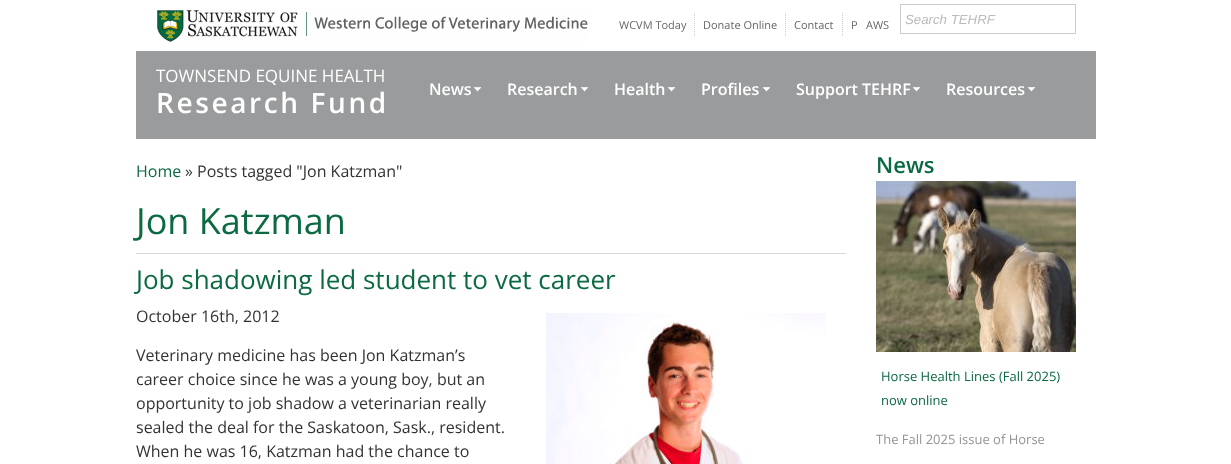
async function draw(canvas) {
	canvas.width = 1231;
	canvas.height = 464;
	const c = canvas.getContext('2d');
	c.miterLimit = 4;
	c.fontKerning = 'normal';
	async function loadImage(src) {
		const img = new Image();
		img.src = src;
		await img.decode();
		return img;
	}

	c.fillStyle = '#fff';
	c.fillRect(0, 0, 1231, 464);
	c.drawImage(await loadImage('img1.png'), 157, 10, 431, 32);
	c.beginPath();
	c.moveTo(694.5, 13);
	c.lineTo(694.5, 37);
	c.strokeStyle = '#ccc';
	c.setLineDash([1, 1]);
	c.stroke();
	c.font = '11px Open Sans';
	c.fillStyle = '#666';
	c.fillText('WCVM Today', 619, 29);
	c.beginPath();
	c.moveTo(785.5, 13);
	c.lineTo(785.5, 37);
	c.stroke();
	c.fillText('Donate Online', 703, 29);
	c.beginPath();
	c.moveTo(842.5, 13);
	c.lineTo(842.5, 37);
	c.stroke();
	for (const [text, x, y] of [
		['Contact', 794, 29],
		['P', 851, 29],
		['AWS', 866, 29],
	]) {
		c.fillText(text, x, y);
	}
	c.setLineDash([]);
	c.strokeRect(900.5, 4.5, 175, 29);
	c.font = 'italic 13.25px Liberation Sans';
	c.fillStyle = '#bbb';
	c.fillText('Search TEHRF', 905, 24);
	c.fillStyle = '#9a9b9d';
	c.fillRect(136, 51, 960, 88);
	c.font = '17px Open Sans';
	c.fillStyle = '#fff';
	c.fillText('TOWNSEND EQUINE HEALTH', 156, 82);
	c.letterSpacing = '2.6px';
	c.font = '600 28px Open Sans';
	c.fillText('Research Fund', 156, 113);
	c.drawImage(await loadImage('img2.png'), 474, 87, 7, 5);
	c.letterSpacing = '0px';
	c.font = '600 16px Open Sans';
	c.fillText('News', 429, 95);
	c.drawImage(await loadImage('img3.png'), 581, 87, 7, 5);
	c.fillText('Research', 507, 95);
	c.drawImage(await loadImage('img2.png'), 668, 87, 7, 5);
	c.fillText('Health', 614, 95);
	c.drawImage(await loadImage('img4.png'), 762, 87, 8, 5);
	c.fillText('Profiles', 701, 95);
	c.drawImage(await loadImage('img3.png'), 913, 87, 7, 5);
	c.fillText('Support TEHRF', 796, 95);
	c.drawImage(await loadImage('img3.png'), 1028, 87, 7, 5);
	c.fillText('Resources', 946, 95);
	c.font = '16px Open Sans';
	c.fillStyle = '#0b6a41';
	c.fillText('Home', 136, 177);
	c.fillStyle = '#333';
	c.fillText('» Posts tagged "Jon Katzman"', 185, 177);
	c.fillStyle = '#d7d7d7';
	c.fillRect(136, 253, 710, 1);
	c.font = '36px Open Sans';
	c.fillStyle = '#0b6a41';
	c.fillText('Jon Katzman', 136, 234);
	c.font = '26px Open Sans';
	c.fillText('Job shadowing led student to vet career', 136, 289);
	c.font = '16px Open Sans';
	c.fillStyle = '#333';
	for (const [text, x, y] of [
		['October 16th, 2012', 136, 322],
		['Veterinary medicine has been Jon Katzman’s', 136, 361],
		['career choice since he was a young boy, but an', 136, 385],
		['opportunity to job shadow a veterinarian really', 136, 409],
		['sealed the deal for the Saskatoon, Sask., resident.', 136, 433],
		['When he was 16, Katzman had the chance to', 136, 457],
	]) {
		c.fillText(text, x, y);
	}
	c.drawImage(await loadImage('img5.png'), 546, 313, 280, 151);
	c.font = '600 22px Open Sans';
	c.fillStyle = '#0b6a41';
	c.fillText('News', 876, 173);
	c.drawImage(await loadImage('img6.png'), 876, 181, 200, 171);
	c.font = '13px Open Sans';
	c.fillText('Horse Health Lines (Fall 2025)', 881, 381);
	c.fillText('now online', 881, 405);
	c.fillStyle = '#959595';
	c.fillText('The Fall 2025 issue of Horse', 876, 444);
}

draw(document.querySelector('canvas'));
